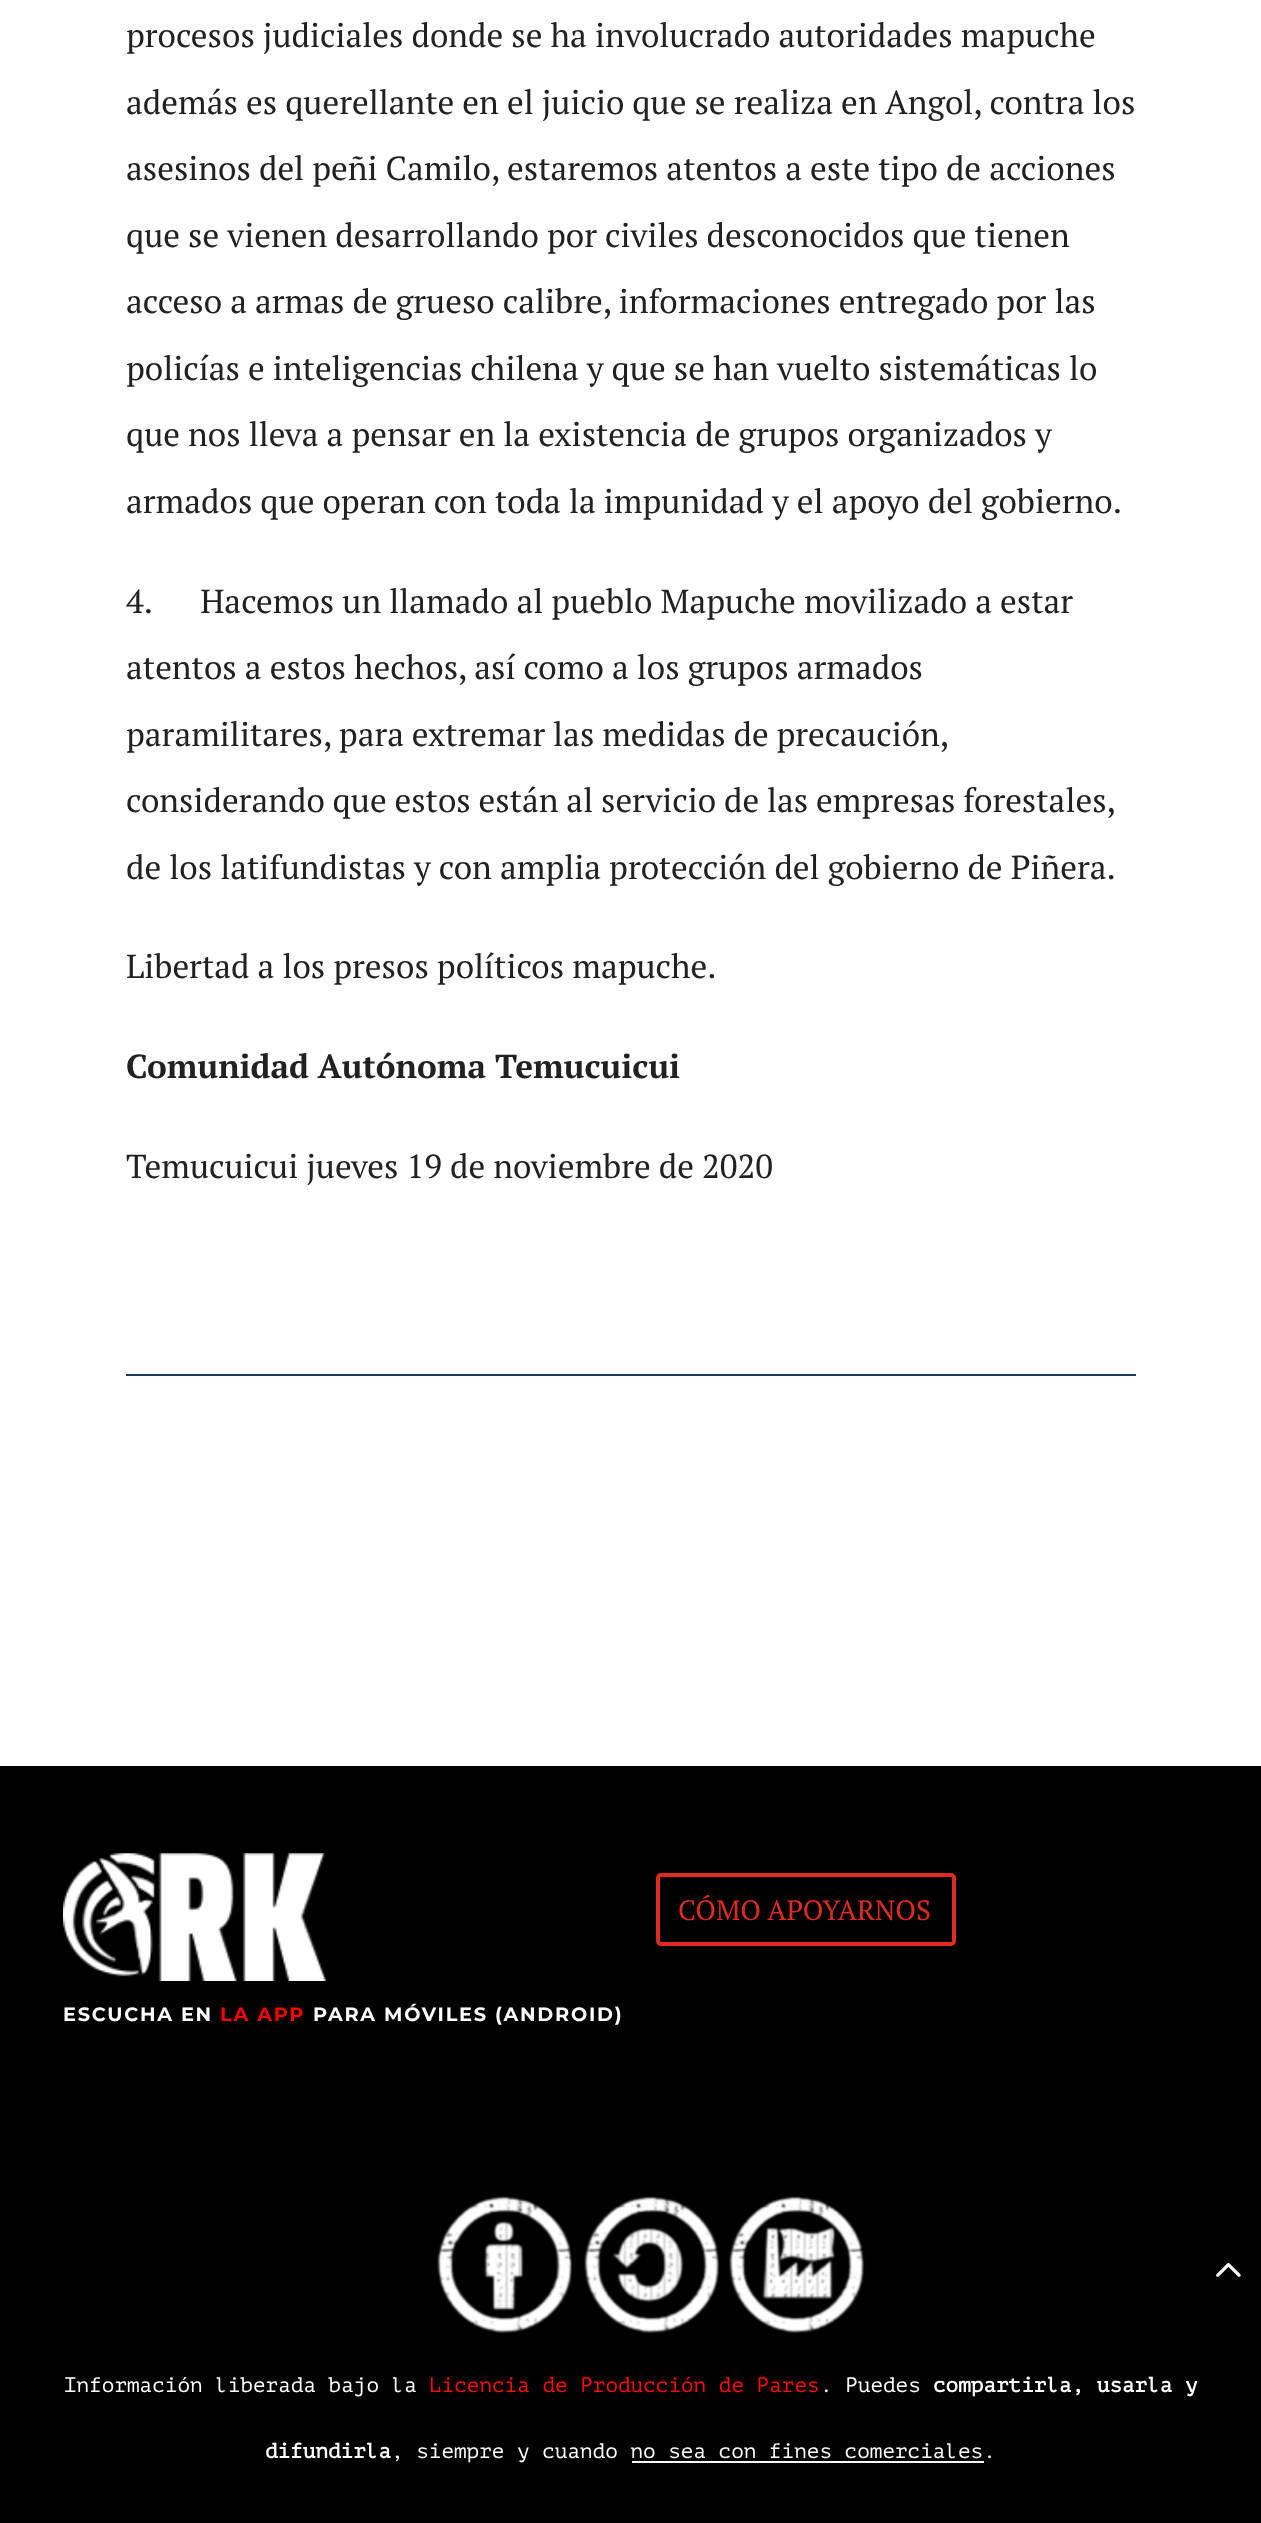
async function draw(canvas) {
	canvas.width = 1261;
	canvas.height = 2523;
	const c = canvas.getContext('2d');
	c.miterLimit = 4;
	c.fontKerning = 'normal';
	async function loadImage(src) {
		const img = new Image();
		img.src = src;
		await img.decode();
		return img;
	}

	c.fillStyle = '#fff';
	c.fillRect(0, 0, 1261, 2523);
	c.font = '33.25px PT Serif';
	c.fillStyle = '#212121';
	for (const [text, x, y] of [
		['procesos judiciales donde se ha involucrado autoridades mapuche', 126, 47],
		['además es querellante en el juicio que se realiza en Angol, contra los', 126, 114],
		['asesinos del peñi Camilo, estaremos atentos a este tipo de acciones', 126, 180],
		['que se vienen desarrollando por civiles desconocidos que tienen', 126, 247],
		['acceso a armas de grueso calibre, informaciones entregado por las', 126, 313],
		['policías e inteligencias chilena y que se han vuelto sistemáticas lo', 126, 380],
		['que nos lleva a pensar en la existencia de grupos organizados y', 126, 446],
		['armados que operan con toda la impunidad y el apoyo del gobierno.', 126, 513],
		['4.      Hacemos un llamado al pueblo Mapuche movilizado a estar', 126, 613],
		['atentos a estos hechos, así como a los grupos armados', 126, 679],
	]) {
		c.fillText(text, x, y);
	}
	c.wordSpacing = '-0.25px';
	c.fillText('paramilitares, para extremar las medidas de precaución,', 126, 746);
	c.fillText('considerando que estos están al servicio de las empresas forestales,', 126, 812);
	c.wordSpacing = '0px';
	c.fillText('de los latifundistas y con amplia protección del gobierno de Piñera.', 126, 879);
	c.fillText('Libertad a los presos políticos mapuche.', 126, 978);
	c.font = 'bold 33.25px PT Serif';
	c.fillText('Comunidad Autónoma Temucuicui', 126, 1078);
	c.font = '33.25px PT Serif';
	c.fillText('Temucuicui jueves 19 de noviembre de 2020', 126, 1178);
	c.fillStyle = '#183958';
	c.fillRect(126, 1374, 1010, 2);
	c.fillStyle = '#000';
	c.fillRect(0, 1766, 1261, 757);
	c.drawImage(await loadImage('img1.png'), 63, 1853, 263, 128);
	c.beginPath();
	c.roundRect(658, 1875, 296, 69, 3);
	c.strokeStyle = '#e02b20';
	c.lineWidth = 4;
	c.stroke();
	c.font = '28px PT Serif';
	c.fillStyle = '#e02b20';
	c.fillText('CÓMO APOYARNOS', 678, 1920);
	c.letterSpacing = '1.75px';
	c.font = '100 19.25px Montserrat';
	c.fillStyle = '#fefefe';
	c.fillText('ESCUCHA EN', 63, 2021);
	c.fillStyle = '#f00';
	c.fillText('LA APP', 220, 2021);
	c.fillStyle = '#fefefe';
	c.fillText('PARA MÓVILES (ANDROID)', 313, 2021);
	c.drawImage(await loadImage('img2.png'), 437, 2196, 428, 138);
	c.letterSpacing = '0px';
	c.font = '21px PT Mono';
	c.fillText('Información liberada bajo la', 64, 2392);
	c.fillStyle = '#ff0c00';
	c.fillText('Licencia de Producción de Pares', 429, 2392);
	c.fillStyle = '#fefefe';
	c.fillText('. Puedes', 820, 2392);
	c.font = 'bold 21px PT Mono';
	c.fillText('compartirla, usarla y', 933, 2392);
	c.fillText('difundirla', 265, 2458);
	c.font = '21px PT Mono';
	c.fillText(', siempre y cuando no sea con fines comerciales.', 391, 2458);
	c.fillRect(632, 2461, 352, 2);
	c.drawImage(await loadImage('img3.png'), 1216, 2263, 25, 14);
}

draw(document.querySelector('canvas'));
